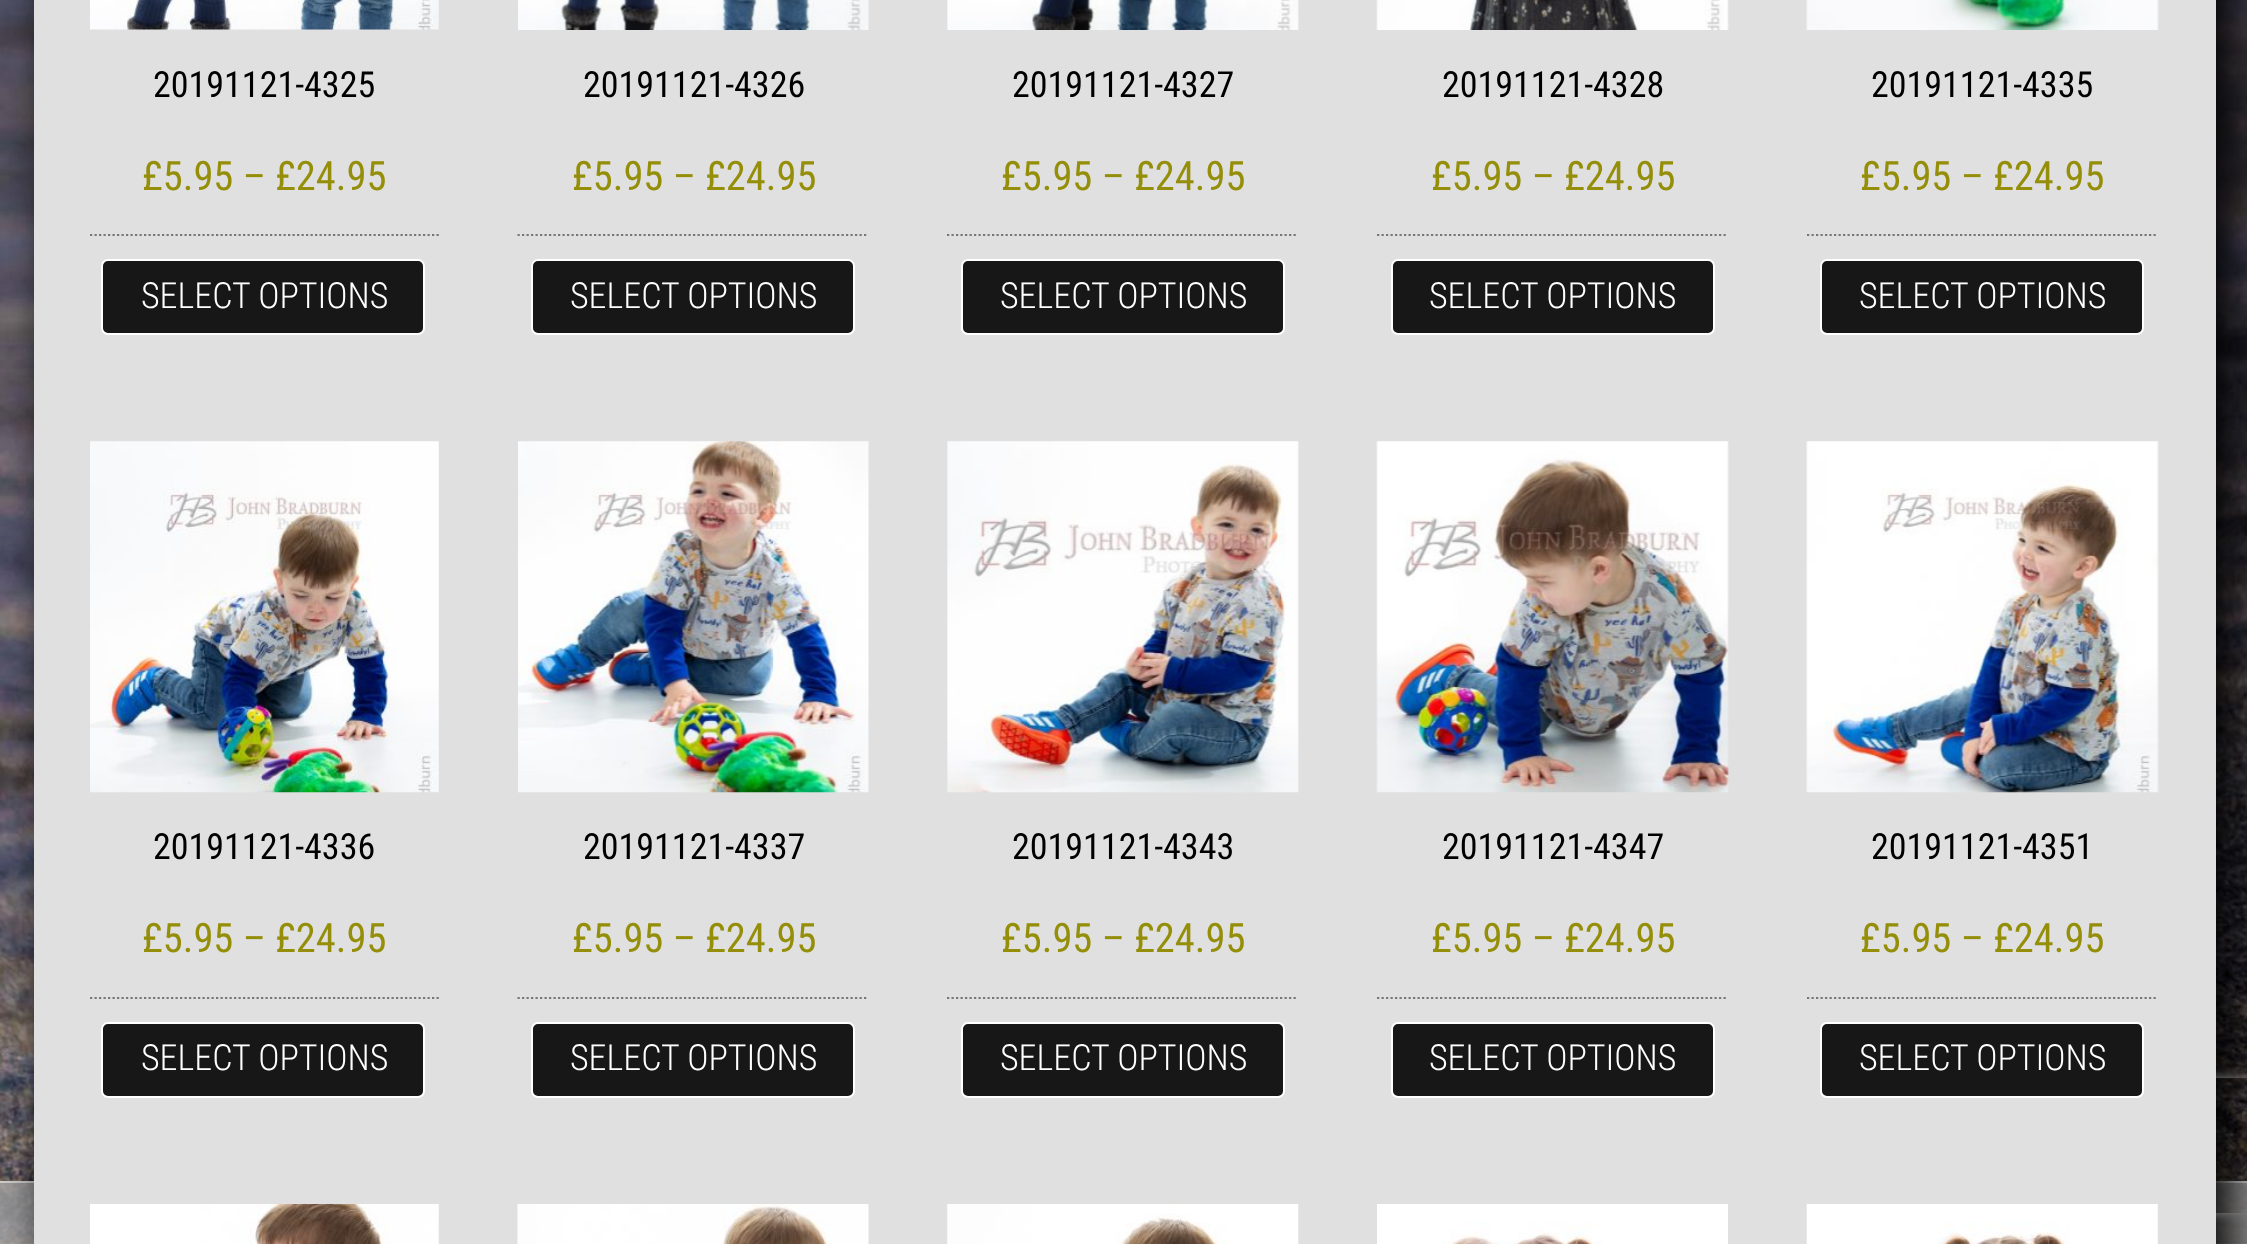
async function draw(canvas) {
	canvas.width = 2247;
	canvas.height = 1244;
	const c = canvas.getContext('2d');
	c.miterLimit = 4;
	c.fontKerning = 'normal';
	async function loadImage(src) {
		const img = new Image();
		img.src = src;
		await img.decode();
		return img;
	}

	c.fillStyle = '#fff';
	c.fillRect(0, 0, 2247, 1244);
	c.drawImage(await loadImage('img1.png'), 0, 0, 2247, 1244);
	c.fillStyle = '#abababc9';
	c.fillRect(0, 1183, 2247, 61);
	c.fillStyle = '#ccc';
	c.fillRect(0, 1181, 2247, 2);
	c.fillStyle = '#000';
	c.filter = 'blur(22.5px)';
	c.beginPath();
	c.rect(47, -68, 2183, 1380);
	c.fill();
	c.filter = 'none';
	c.save();
	c.beginPath();
	c.moveTo(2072, 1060);
	c.lineTo(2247, 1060);
	c.lineTo(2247, 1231);
	c.lineTo(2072, 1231);
	c.closePath();
	c.moveTo(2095, 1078);
	c.lineTo(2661, 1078);
	c.bezierCurveTo(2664, 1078, 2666, 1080, 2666, 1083);
	c.lineTo(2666, 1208);
	c.bezierCurveTo(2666, 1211, 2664, 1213, 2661, 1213);
	c.lineTo(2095, 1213);
	c.bezierCurveTo(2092, 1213, 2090, 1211, 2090, 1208);
	c.lineTo(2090, 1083);
	c.bezierCurveTo(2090, 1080, 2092, 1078, 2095, 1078);
	c.closePath();
	c.clip('evenodd');
	c.fillStyle = '#808080';
	c.filter = 'blur(5.5px)';
	c.beginPath();
	c.roundRect(2090, 1078, 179, 135, 5);
	c.fill();
	c.filter = 'none';
	c.restore();
	c.fillStyle = '#e0e0e0';
	c.fillRect(34, 0, 2182, 1244);
	c.beginPath();
	c.moveTo(90, 235);
	c.lineTo(439, 235);
	c.strokeStyle = '#777';
	c.lineWidth = 2.2;
	c.setLineDash([2.25, 2.25]);
	c.stroke();
	c.drawImage(await loadImage('img2.png'), 90, 0, 349, 30);
	c.font = '36px Roboto Condensed';
	c.fillStyle = '#000';
	c.fillText('20191121-4325', 153, 97);
	c.font = '40.5px Roboto Condensed';
	c.fillStyle = '#958e09';
	c.fillText('£5.95 – £24.95', 142, 190);
	c.fillStyle = '#171717';
	c.beginPath();
	c.roundRect(102, 260, 322, 74, 6);
	c.fill();
	c.strokeStyle = '#fff';
	c.lineWidth = 2;
	c.setLineDash([]);
	c.stroke();
	c.font = '300 36px Roboto Condensed';
	c.fillStyle = '#fff';
	c.fillText('SELECT OPTIONS', 141, 308);
	c.beginPath();
	c.moveTo(517.5, 235);
	c.lineTo(868.5, 235);
	c.strokeStyle = '#777';
	c.lineWidth = 2.2;
	c.setLineDash([2.25, 2.25]);
	c.stroke();
	c.drawImage(await loadImage('img3.png'), 518, 0, 351, 30);
	c.font = '36px Roboto Condensed';
	c.fillStyle = '#000';
	c.fillText('20191121-4326', 583, 97);
	c.font = '40.5px Roboto Condensed';
	c.fillStyle = '#958e09';
	c.fillText('£5.95 – £24.95', 572, 190);
	c.fillStyle = '#171717';
	c.beginPath();
	c.roundRect(532, 260, 322, 74, 6);
	c.fill();
	c.strokeStyle = '#fff';
	c.lineWidth = 2;
	c.setLineDash([]);
	c.stroke();
	c.font = '300 36px Roboto Condensed';
	c.fillStyle = '#fff';
	c.fillText('SELECT OPTIONS', 570, 308);
	c.beginPath();
	c.moveTo(947, 235);
	c.lineTo(1298, 235);
	c.strokeStyle = '#777';
	c.lineWidth = 2.2;
	c.setLineDash([2.25, 2.25]);
	c.stroke();
	c.drawImage(await loadImage('img4.png'), 947, 0, 352, 30);
	c.font = '36px Roboto Condensed';
	c.fillStyle = '#000';
	c.fillText('20191121-4327', 1012, 97);
	c.font = '40.5px Roboto Condensed';
	c.fillStyle = '#958e09';
	c.fillText('£5.95 – £24.95', 1001, 190);
	c.fillStyle = '#171717';
	c.beginPath();
	c.roundRect(962, 260, 322, 74, 6);
	c.fill();
	c.strokeStyle = '#fff';
	c.lineWidth = 2;
	c.setLineDash([]);
	c.stroke();
	c.font = '300 36px Roboto Condensed';
	c.fillStyle = '#fff';
	c.fillText('SELECT OPTIONS', 1000, 308);
	c.beginPath();
	c.moveTo(1377, 235);
	c.lineTo(1728, 235);
	c.strokeStyle = '#777';
	c.lineWidth = 2.2;
	c.setLineDash([2.25, 2.25]);
	c.stroke();
	c.drawImage(await loadImage('img5.png'), 1376, 0, 353, 30);
	c.font = '36px Roboto Condensed';
	c.fillStyle = '#000';
	c.fillText('20191121-4328', 1442, 97);
	c.font = '40.5px Roboto Condensed';
	c.fillStyle = '#958e09';
	c.fillText('£5.95 – £24.95', 1431, 190);
	c.fillStyle = '#171717';
	c.beginPath();
	c.roundRect(1392, 260, 322, 74, 6);
	c.fill();
	c.strokeStyle = '#fff';
	c.lineWidth = 2;
	c.setLineDash([]);
	c.stroke();
	c.font = '300 36px Roboto Condensed';
	c.fillStyle = '#fff';
	c.fillText('SELECT OPTIONS', 1429, 308);
	c.beginPath();
	c.moveTo(1807, 235);
	c.lineTo(2158, 235);
	c.strokeStyle = '#777';
	c.lineWidth = 2.2;
	c.setLineDash([2.25, 2.25]);
	c.stroke();
	c.drawImage(await loadImage('img6.png'), 1806, 0, 353, 30);
	c.font = '36px Roboto Condensed';
	c.fillStyle = '#000';
	c.fillText('20191121-4335', 1871, 97);
	c.font = '40.5px Roboto Condensed';
	c.fillStyle = '#958e09';
	c.fillText('£5.95 – £24.95', 1860, 190);
	c.fillStyle = '#171717';
	c.beginPath();
	c.roundRect(1821, 260, 322, 74, 6);
	c.fill();
	c.strokeStyle = '#fff';
	c.lineWidth = 2;
	c.setLineDash([]);
	c.stroke();
	c.font = '300 36px Roboto Condensed';
	c.fillStyle = '#fff';
	c.fillText('SELECT OPTIONS', 1859, 308);
	c.beginPath();
	c.moveTo(90, 998);
	c.lineTo(439, 998);
	c.strokeStyle = '#777';
	c.lineWidth = 2.2;
	c.setLineDash([2.25, 2.25]);
	c.stroke();
	c.drawImage(await loadImage('img7.png'), 90, 441, 349, 352);
	c.font = '36px Roboto Condensed';
	c.fillStyle = '#000';
	c.fillText('20191121-4336', 153, 859);
	c.font = '40.5px Roboto Condensed';
	c.fillStyle = '#958e09';
	c.fillText('£5.95 – £24.95', 142, 952);
	c.fillStyle = '#171717';
	c.beginPath();
	c.roundRect(102, 1023, 322, 74, 6);
	c.fill();
	c.strokeStyle = '#fff';
	c.lineWidth = 2;
	c.setLineDash([]);
	c.stroke();
	c.font = '300 36px Roboto Condensed';
	c.fillStyle = '#fff';
	c.fillText('SELECT OPTIONS', 141, 1070);
	c.beginPath();
	c.moveTo(517.5, 998);
	c.lineTo(868.5, 998);
	c.strokeStyle = '#777';
	c.lineWidth = 2.2;
	c.setLineDash([2.25, 2.25]);
	c.stroke();
	c.drawImage(await loadImage('img8.png'), 518, 441, 351, 352);
	c.font = '36px Roboto Condensed';
	c.fillStyle = '#000';
	c.fillText('20191121-4337', 583, 859);
	c.font = '40.5px Roboto Condensed';
	c.fillStyle = '#958e09';
	c.fillText('£5.95 – £24.95', 572, 952);
	c.fillStyle = '#171717';
	c.beginPath();
	c.roundRect(532, 1023, 322, 74, 6);
	c.fill();
	c.strokeStyle = '#fff';
	c.lineWidth = 2;
	c.setLineDash([]);
	c.stroke();
	c.font = '300 36px Roboto Condensed';
	c.fillStyle = '#fff';
	c.fillText('SELECT OPTIONS', 570, 1070);
	c.beginPath();
	c.moveTo(947, 998);
	c.lineTo(1298, 998);
	c.strokeStyle = '#777';
	c.lineWidth = 2.2;
	c.setLineDash([2.25, 2.25]);
	c.stroke();
	c.drawImage(await loadImage('img9.png'), 947, 441, 352, 352);
	c.font = '36px Roboto Condensed';
	c.fillStyle = '#000';
	c.fillText('20191121-4343', 1012, 859);
	c.font = '40.5px Roboto Condensed';
	c.fillStyle = '#958e09';
	c.fillText('£5.95 – £24.95', 1001, 952);
	c.fillStyle = '#171717';
	c.beginPath();
	c.roundRect(962, 1023, 322, 74, 6);
	c.fill();
	c.strokeStyle = '#fff';
	c.lineWidth = 2;
	c.setLineDash([]);
	c.stroke();
	c.font = '300 36px Roboto Condensed';
	c.fillStyle = '#fff';
	c.fillText('SELECT OPTIONS', 1000, 1070);
	c.beginPath();
	c.moveTo(1377, 998);
	c.lineTo(1728, 998);
	c.strokeStyle = '#777';
	c.lineWidth = 2.2;
	c.setLineDash([2.25, 2.25]);
	c.stroke();
	c.drawImage(await loadImage('img10.png'), 1376, 441, 353, 352);
	c.font = '36px Roboto Condensed';
	c.fillStyle = '#000';
	c.fillText('20191121-4347', 1442, 859);
	c.font = '40.5px Roboto Condensed';
	c.fillStyle = '#958e09';
	c.fillText('£5.95 – £24.95', 1431, 952);
	c.fillStyle = '#171717';
	c.beginPath();
	c.roundRect(1392, 1023, 322, 74, 6);
	c.fill();
	c.strokeStyle = '#fff';
	c.lineWidth = 2;
	c.setLineDash([]);
	c.stroke();
	c.font = '300 36px Roboto Condensed';
	c.fillStyle = '#fff';
	c.fillText('SELECT OPTIONS', 1429, 1070);
	c.beginPath();
	c.moveTo(1807, 998);
	c.lineTo(2158, 998);
	c.strokeStyle = '#777';
	c.lineWidth = 2.2;
	c.setLineDash([2.25, 2.25]);
	c.stroke();
	c.drawImage(await loadImage('img11.png'), 1806, 441, 353, 352);
	c.font = '36px Roboto Condensed';
	c.fillStyle = '#000';
	c.fillText('20191121-4351', 1871, 859);
	c.font = '40.5px Roboto Condensed';
	c.fillStyle = '#958e09';
	c.fillText('£5.95 – £24.95', 1860, 952);
	c.fillStyle = '#171717';
	c.beginPath();
	c.roundRect(1821, 1023, 322, 74, 6);
	c.fill();
	c.strokeStyle = '#fff';
	c.lineWidth = 2;
	c.setLineDash([]);
	c.stroke();
	c.font = '300 36px Roboto Condensed';
	c.fillStyle = '#fff';
	c.fillText('SELECT OPTIONS', 1859, 1070);
	c.drawImage(await loadImage('img12.png'), 90, 1204, 349, 40);
	c.drawImage(await loadImage('img13.png'), 517, 1204, 352, 40);
	c.drawImage(await loadImage('img14.png'), 947, 1204, 352, 40);
	c.drawImage(await loadImage('img15.png'), 1377, 1204, 351, 40);
	c.drawImage(await loadImage('img16.png'), 1806, 1204, 352, 40);
}

draw(document.querySelector('canvas'));
